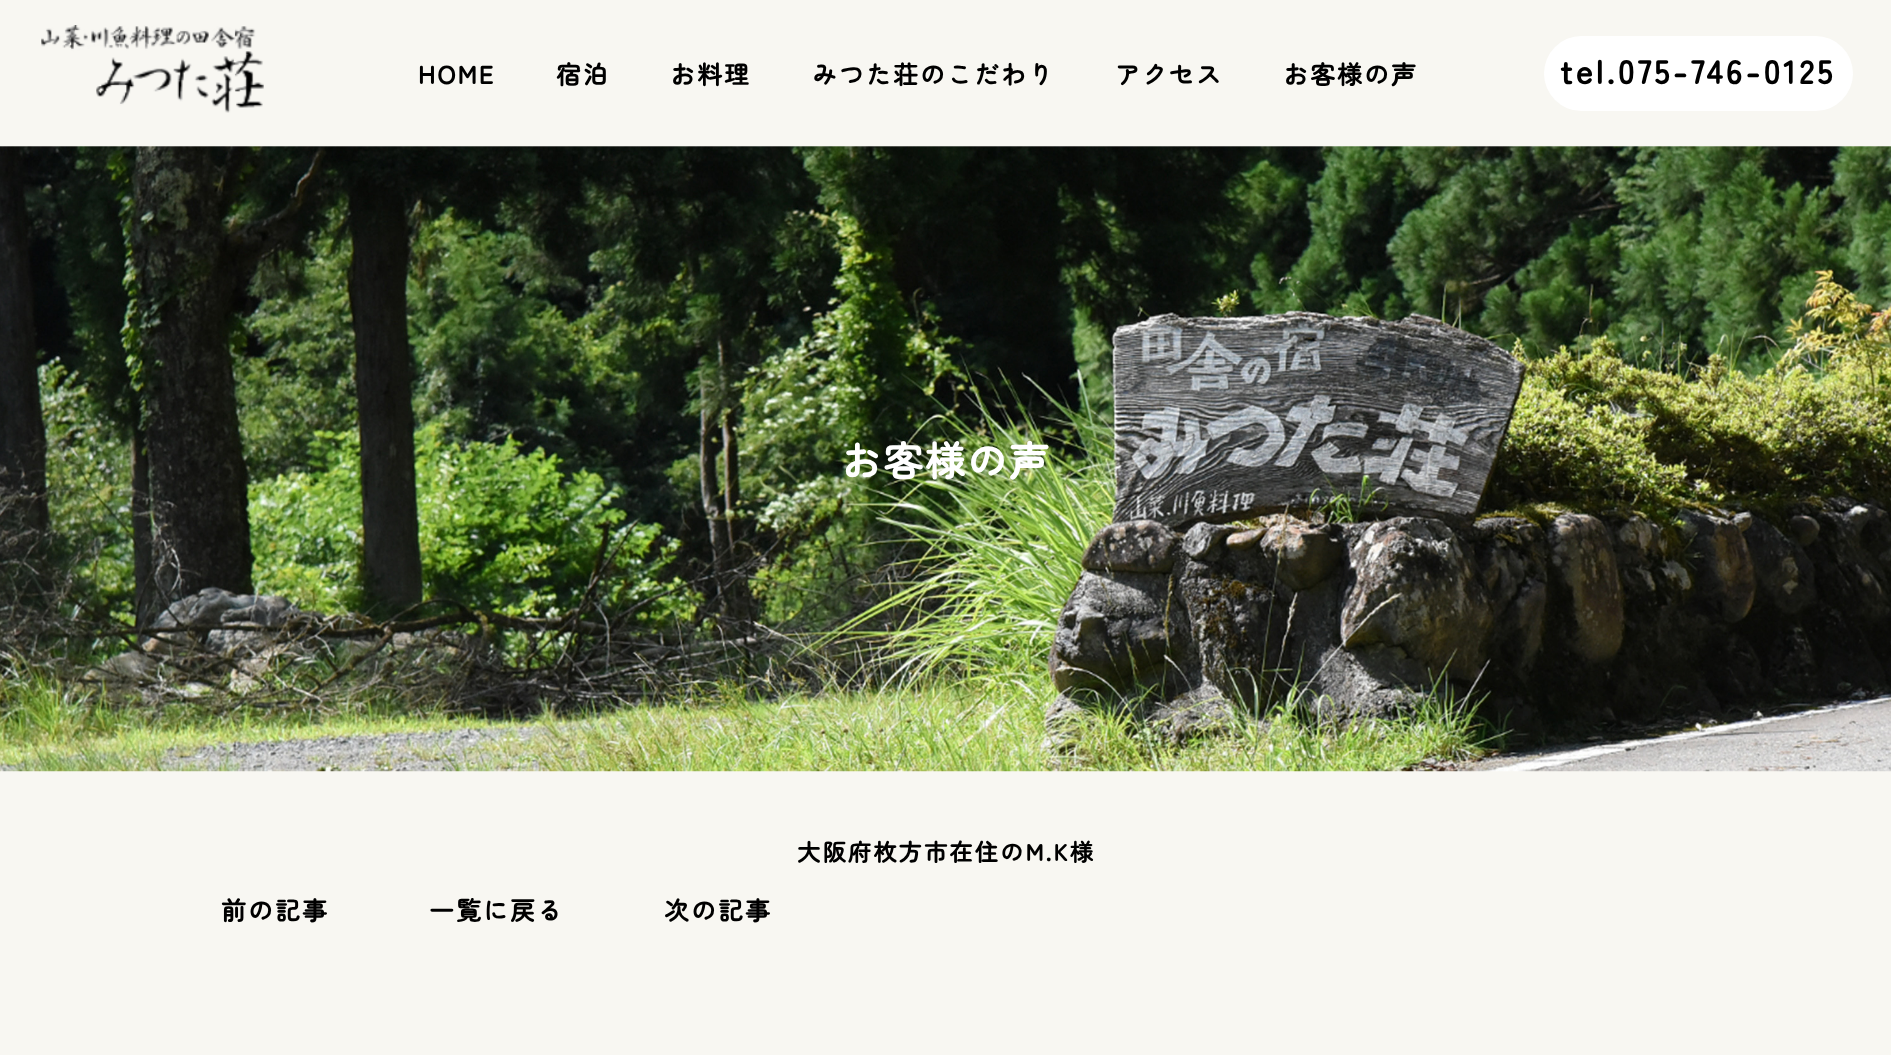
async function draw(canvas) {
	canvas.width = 1891;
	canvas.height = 1055;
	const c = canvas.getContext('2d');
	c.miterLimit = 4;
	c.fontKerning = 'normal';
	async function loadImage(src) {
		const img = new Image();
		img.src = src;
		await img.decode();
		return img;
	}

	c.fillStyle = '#f8f7f2';
	c.fillRect(0, 0, 1891, 1055);
	c.drawImage(await loadImage('img1.png'), 41, 25, 223, 88);
	c.letterSpacing = '2px';
	c.font = 'bold 25px Zen Maru Gothic';
	c.fillStyle = '#000';
	for (const [text, x, y] of [
		['HOME', 418, 84],
		['宿泊', 556, 84],
		['お料理', 670, 84],
		['みつた荘のこだわり', 812, 84],
		['アクセス', 1115, 84],
		['お客様の声', 1283, 84],
	]) {
		c.fillText(text, x, y);
	}
	c.fillStyle = '#fff';
	c.beginPath();
	c.roundRect(1544, 36, 309, 75, 37.5);
	c.fill();
	c.letterSpacing = '3.25px';
	c.font = 'bold 32.5px Zen Maru Gothic';
	c.fillStyle = '#000';
	c.fillText('tel.075-746-0125', 1560, 84);
	c.drawImage(await loadImage('img2.png'), 0, 146, 1891, 626);
	c.letterSpacing = '2px';
	c.font = 'bold 40px Zen Maru Gothic';
	c.fillStyle = '#fff';
	c.fillText('お客様の声', 841, 476);
	c.font = 'bold 23.4px Zen Maru Gothic';
	c.fillStyle = '#000';
	c.fillText('大阪府枚方市在住のM.K様', 797, 861);
	c.font = 'bold 25px Zen Maru Gothic';
	for (const [text, x, y] of [
		['前の記事', 221, 920],
		['一覧に戻る', 429, 920],
		['次の記事', 664, 920],
	]) {
		c.fillText(text, x, y);
	}
}

draw(document.querySelector('canvas'));
